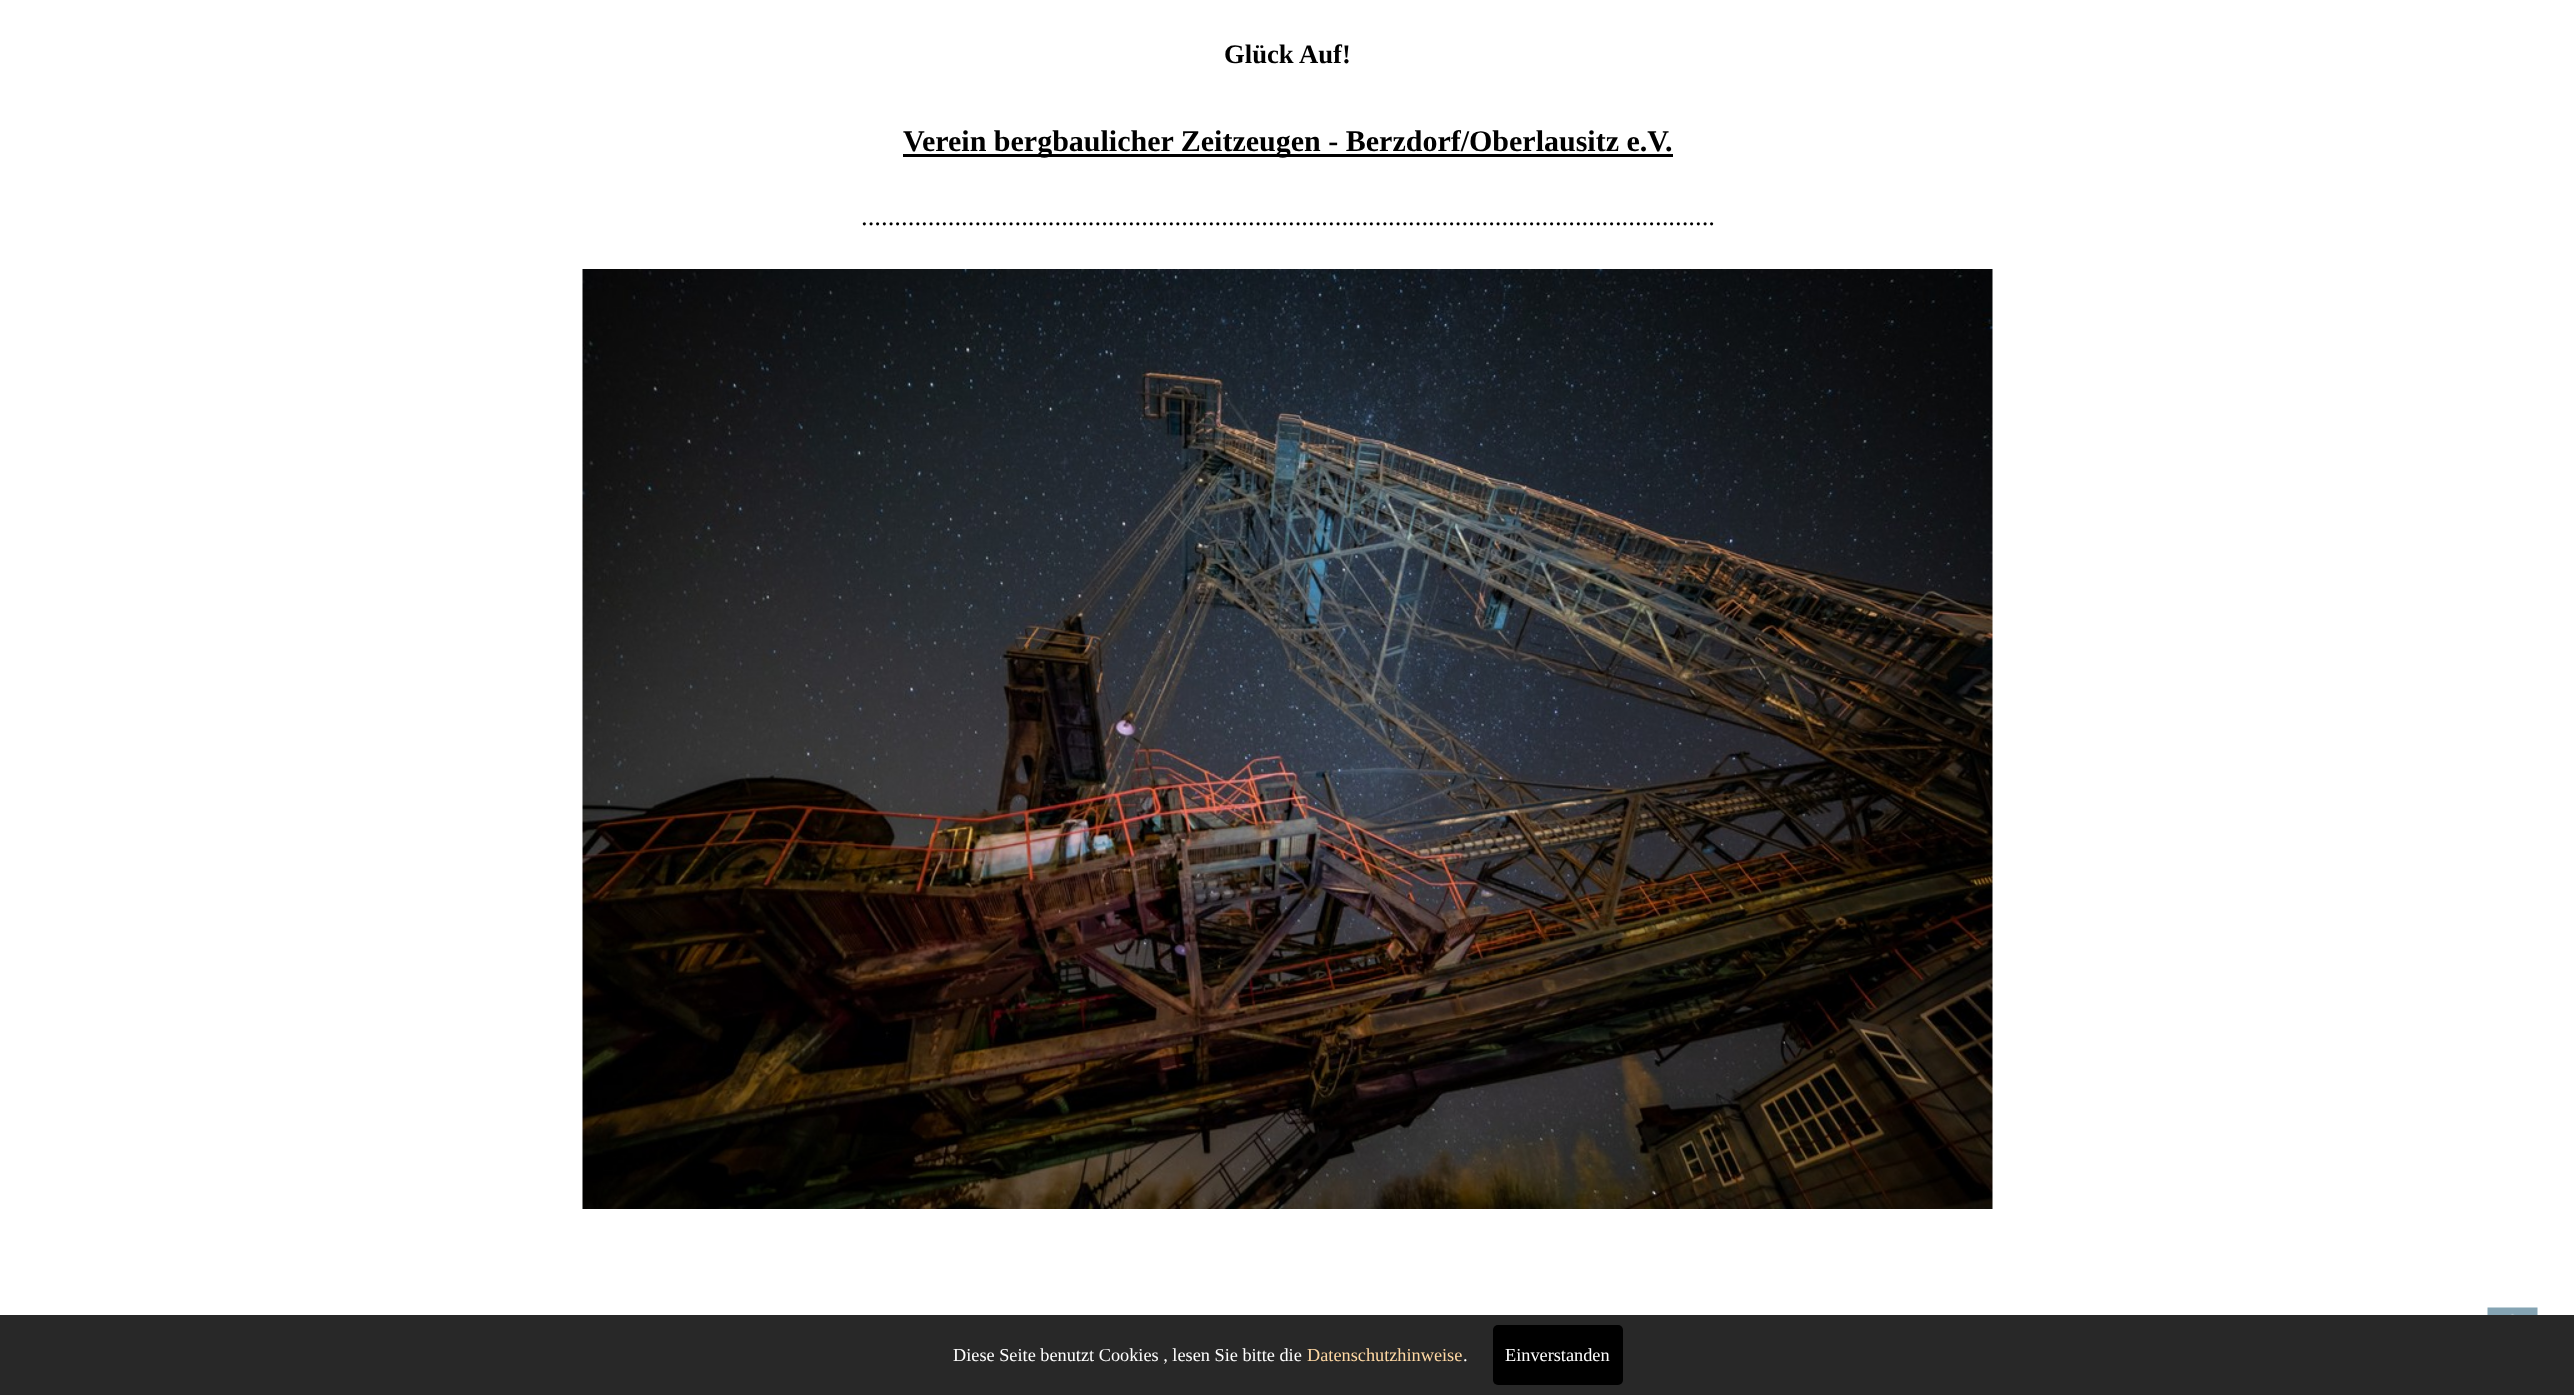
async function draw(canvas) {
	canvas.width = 2574;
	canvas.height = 1395;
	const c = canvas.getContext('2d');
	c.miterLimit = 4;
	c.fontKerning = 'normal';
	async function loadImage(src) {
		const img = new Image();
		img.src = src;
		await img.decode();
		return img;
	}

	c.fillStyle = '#fff';
	c.fillRect(0, 0, 2574, 1395);
	c.font = 'bold 26.7px Liberation Serif';
	c.fillStyle = '#000';
	c.fillText('Glück Auf!', 1224, 63);
	c.fillRect(903, 154, 770, 3);
	c.font = 'bold 30px Liberation Serif';
	c.fillText('Verein bergbaulicher Zeitzeugen - Berzdorf/Oberlausitz e.V.', 903, 151);
	c.font = '26.7px Liberation Serif';
	c.fillText('................................................................................................................................', 861, 225);
	c.drawImage(await loadImage('img1.png'), 582, 269, 1411, 940);
	c.drawImage(await loadImage('img2.png'), 2487, 1307, 51, 8);
	c.fillStyle = '#282828';
	c.fillRect(0, 1315, 2574, 80);
	c.font = '18.3px Liberation Serif';
	c.fillStyle = '#fff';
	c.fillText('Diese Seite benutzt Cookies , lesen Sie bitte die', 953, 1361);
	c.fillStyle = '#ffd8a3';
	c.fillText('Datenschutzhinweise', 1307, 1361);
	c.fillStyle = '#fff';
	c.fillText('.', 1463, 1361);
	c.fillStyle = '#000';
	c.beginPath();
	c.roundRect(1493, 1325, 130, 60, 5);
	c.fill();
	c.fillStyle = '#fff';
	c.fillText('Einverstanden', 1505, 1361);
}

draw(document.querySelector('canvas'));
